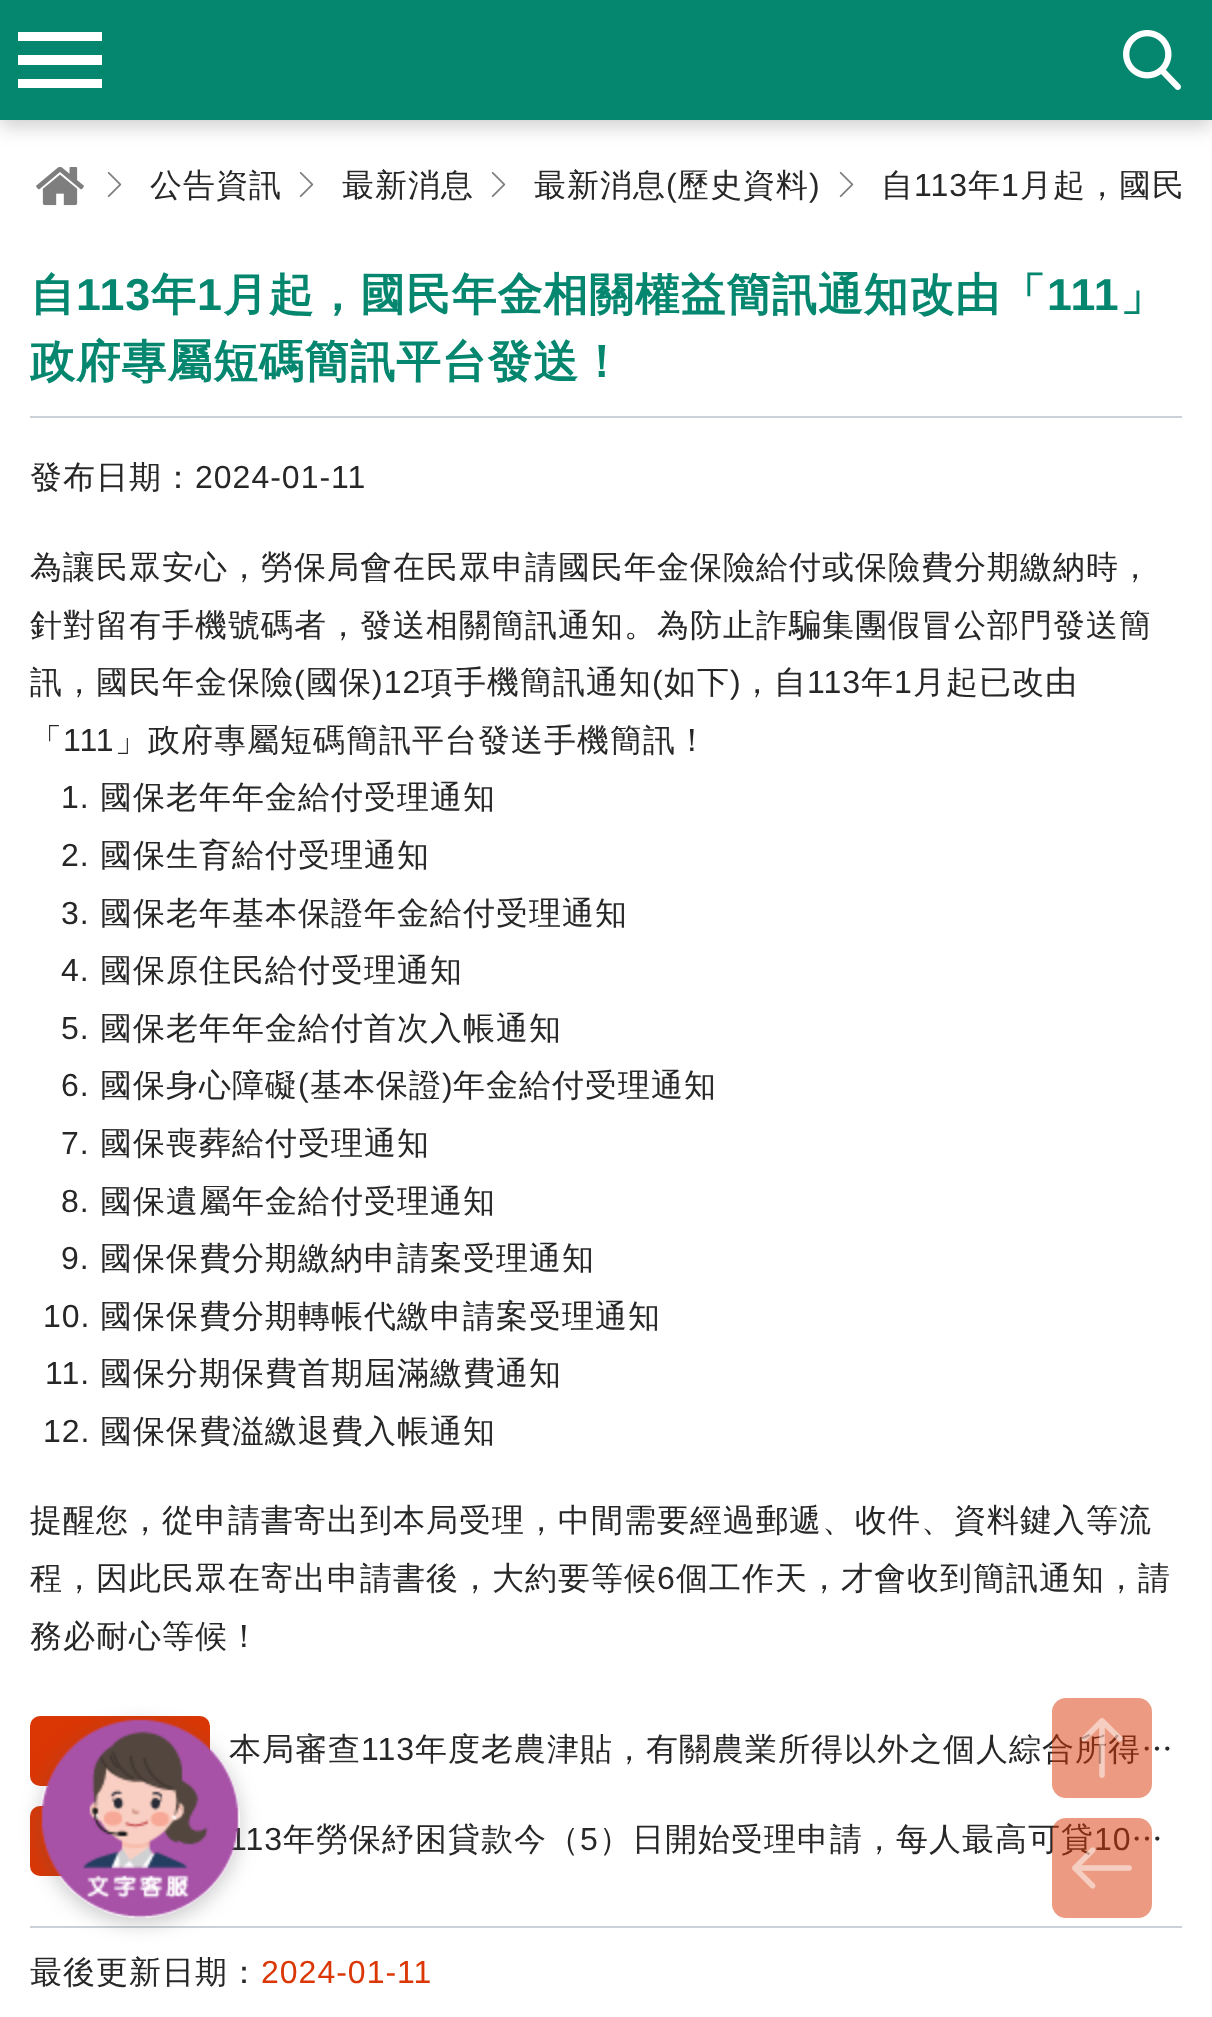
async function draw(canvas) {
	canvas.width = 1212;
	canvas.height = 2017;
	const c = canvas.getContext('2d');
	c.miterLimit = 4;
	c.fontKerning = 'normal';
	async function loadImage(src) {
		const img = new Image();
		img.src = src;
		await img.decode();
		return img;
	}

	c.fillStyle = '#fff';
	c.fillRect(0, 0, 1212, 2017);
	c.fillStyle = '#5757574d';
	c.filter = 'blur(10px)';
	c.beginPath();
	c.rect(0, 6, 1212, 120);
	c.fill();
	c.filter = 'none';
	c.fillStyle = '#05866f';
	c.fillRect(0, 0, 1212, 120);
	c.fillStyle = '#fff';
	c.beginPath();
	c.moveTo(18, 88);
	c.lineTo(102, 88);
	c.lineTo(102, 79);
	c.lineTo(18, 79);
	c.closePath();
	c.moveTo(18, 65);
	c.lineTo(102, 65);
	c.lineTo(102, 55);
	c.lineTo(18, 55);
	c.closePath();
	c.moveTo(18, 32);
	c.lineTo(18, 41);
	c.lineTo(102, 41);
	c.lineTo(102, 32);
	c.closePath();
	c.fill();
	c.drawImage(await loadImage('img1.png'), 1123, 30, 58, 60);
	c.drawImage(await loadImage('img2.png'), 36, 167, 48, 39);
	c.drawImage(await loadImage('img3.png'), 107, 172, 15, 26);
	c.letterSpacing = '1px';
	c.font = '500 32px WenQuanYi Zen Hei';
	c.fillStyle = '#272727';
	c.fillText('公告資訊', 150, 196);
	c.drawImage(await loadImage('img3.png'), 299, 172, 15, 26);
	c.fillText('最新消息', 342, 196);
	c.drawImage(await loadImage('img3.png'), 491, 172, 15, 26);
	c.fillText('最新消息', 534, 196);
	c.font = '32px Liberation Sans';
	c.fillText('(', 666, 196);
	c.font = '500 32px WenQuanYi Zen Hei';
	c.fillText('歷史資料', 677, 196);
	c.font = '32px Liberation Sans';
	c.fillText(')', 809, 196);
	c.drawImage(await loadImage('img3.png'), 839, 172, 15, 26);
	c.font = '500 32px WenQuanYi Zen Hei';
	c.fillText('自', 881, 196);
	c.font = '32px Liberation Sans';
	c.fillText('113', 914, 196);
	c.font = '500 32px WenQuanYi Zen Hei';
	c.fillText('年', 968, 196);
	c.font = '32px Liberation Sans';
	c.fillText('1', 1001, 196);
	c.font = '500 32px WenQuanYi Zen Hei';
	c.fillText('月起，國民', 1020, 196);
	c.fillStyle = '#ccd1d9';
	c.fillRect(30, 416, 1152, 2);
	c.font = 'bold 44.75px WenQuanYi Zen Hei';
	c.fillStyle = '#05866f';
	c.fillText('自', 30, 310);
	c.font = 'bold 44.75px Liberation Sans';
	c.fillText('113', 76, 310);
	c.font = 'bold 44.75px WenQuanYi Zen Hei';
	c.fillText('年', 151, 310);
	c.font = 'bold 44.75px Liberation Sans';
	c.fillText('1', 197, 310);
	c.font = 'bold 44.75px WenQuanYi Zen Hei';
	c.fillText('月起，國民年金相關權益簡訊通知改由「', 223, 310);
	c.font = 'bold 44.75px Liberation Sans';
	c.fillText('111', 1047, 310);
	c.font = 'bold 44.75px WenQuanYi Zen Hei';
	c.fillText('」', 1120, 310);
	c.fillText('政府專屬短碼簡訊平台發送！', 30, 377);
	c.font = '500 32px WenQuanYi Zen Hei';
	c.fillStyle = '#272727';
	c.fillText('發布日期：', 30, 488);
	c.font = '32px Liberation Sans';
	c.fillText('2024-01-11', 195, 488);
	c.font = '500 32px WenQuanYi Zen Hei';
	for (const [text, x, y] of [
		['為讓民眾安心，勞保局會在民眾申請國民年金保險給付或保險費分期繳納時，', 30, 578],
		['針對留有手機號碼者，發送相關簡訊通知。為防止詐騙集團假冒公部門發送簡', 30, 636],
		['訊，國民年金保險', 30, 693],
	]) {
		c.fillText(text, x, y);
	}
	c.font = '32px Liberation Sans';
	c.fillText('(', 294, 693);
	c.font = '500 32px WenQuanYi Zen Hei';
	c.fillText('國保', 306, 693);
	c.font = '32px Liberation Sans';
	c.fillText(')12', 372, 693);
	c.font = '500 32px WenQuanYi Zen Hei';
	c.fillText('項手機簡訊通知', 421, 693);
	c.font = '32px Liberation Sans';
	c.fillText('(', 652, 693);
	c.font = '500 32px WenQuanYi Zen Hei';
	c.fillText('如下', 664, 693);
	c.font = '32px Liberation Sans';
	c.fillText(')', 730, 693);
	c.font = '500 32px WenQuanYi Zen Hei';
	c.fillText('，自', 741, 693);
	c.font = '32px Liberation Sans';
	c.fillText('113', 807, 693);
	c.font = '500 32px WenQuanYi Zen Hei';
	c.fillText('年', 861, 693);
	c.font = '32px Liberation Sans';
	c.fillText('1', 894, 693);
	c.font = '500 32px WenQuanYi Zen Hei';
	c.fillText('月起已改由', 913, 693);
	c.fillText('「', 30, 751);
	c.font = '32px Liberation Sans';
	c.fillText('111', 63, 751);
	c.font = '500 32px WenQuanYi Zen Hei';
	c.fillText('」政府專屬短碼簡訊平台發送手機簡訊！', 115, 751);
	c.font = '32px Liberation Sans';
	c.fillText('1.', 61, 808);
	c.font = '500 32px WenQuanYi Zen Hei';
	c.fillText('國保老年年金給付受理通知', 100, 808);
	c.font = '32px Liberation Sans';
	c.fillText('2.', 61, 866);
	c.font = '500 32px WenQuanYi Zen Hei';
	c.fillText('國保生育給付受理通知', 100, 866);
	c.font = '32px Liberation Sans';
	c.fillText('3.', 61, 924);
	c.font = '500 32px WenQuanYi Zen Hei';
	c.fillText('國保老年基本保證年金給付受理通知', 100, 924);
	c.font = '32px Liberation Sans';
	c.fillText('4.', 61, 981);
	c.font = '500 32px WenQuanYi Zen Hei';
	c.fillText('國保原住民給付受理通知', 100, 981);
	c.font = '32px Liberation Sans';
	c.fillText('5.', 61, 1039);
	c.font = '500 32px WenQuanYi Zen Hei';
	c.fillText('國保老年年金給付首次入帳通知', 100, 1039);
	c.font = '32px Liberation Sans';
	c.fillText('6.', 61, 1096);
	c.font = '500 32px WenQuanYi Zen Hei';
	c.fillText('國保身心障礙', 100, 1096);
	c.font = '32px Liberation Sans';
	c.fillText('(', 298, 1096);
	c.font = '500 32px WenQuanYi Zen Hei';
	c.fillText('基本保證', 310, 1096);
	c.font = '32px Liberation Sans';
	c.fillText(')', 442, 1096);
	c.font = '500 32px WenQuanYi Zen Hei';
	c.fillText('年金給付受理通知', 453, 1096);
	c.font = '32px Liberation Sans';
	c.fillText('7.', 61, 1154);
	c.font = '500 32px WenQuanYi Zen Hei';
	c.fillText('國保喪葬給付受理通知', 100, 1154);
	c.font = '32px Liberation Sans';
	c.fillText('8.', 61, 1212);
	c.font = '500 32px WenQuanYi Zen Hei';
	c.fillText('國保遺屬年金給付受理通知', 100, 1212);
	c.font = '32px Liberation Sans';
	c.fillText('9.', 61, 1269);
	c.font = '500 32px WenQuanYi Zen Hei';
	c.fillText('國保保費分期繳納申請案受理通知', 100, 1269);
	c.font = '32px Liberation Sans';
	c.fillText('10.', 43, 1327);
	c.font = '500 32px WenQuanYi Zen Hei';
	c.fillText('國保保費分期轉帳代繳申請案受理通知', 100, 1327);
	c.font = '32px Liberation Sans';
	c.fillText('11.', 45, 1384);
	c.font = '500 32px WenQuanYi Zen Hei';
	c.fillText('國保分期保費首期屆滿繳費通知', 100, 1384);
	c.font = '32px Liberation Sans';
	c.fillText('12.', 43, 1442);
	c.font = '500 32px WenQuanYi Zen Hei';
	for (const [text, x, y] of [
		['國保保費溢繳退費入帳通知', 100, 1442],
		['提醒您，從申請書寄出到本局受理，中間需要經過郵遞、收件、資料鍵入等流', 30, 1531],
		['程，因此民眾在寄出申請書後，大約要等候', 30, 1589],
	]) {
		c.fillText(text, x, y);
	}
	c.font = '32px Liberation Sans';
	c.fillText('6', 657, 1589);
	c.font = '500 32px WenQuanYi Zen Hei';
	c.fillText('個工作天，才會收到簡訊通知，請', 676, 1589);
	c.fillText('務必耐心等候！', 30, 1647);
	c.fillStyle = '#da3705';
	c.beginPath();
	c.roundRect(30, 1716, 180, 70, 10);
	c.fill();
	c.fillStyle = '#272727';
	c.fillText('本局審查', 229, 1760);
	c.font = '32px Liberation Sans';
	c.fillText('113', 361, 1760);
	c.font = '500 32px WenQuanYi Zen Hei';
	c.fillText('年度老農津貼，有關農業所得以外之個人綜合所得…', 415, 1760);
	c.fillStyle = '#da3705';
	c.beginPath();
	c.roundRect(30, 1806, 180, 70, 10);
	c.fill();
	c.font = '32px Liberation Sans';
	c.fillStyle = '#272727';
	c.fillText('113', 229, 1850);
	c.font = '500 32px WenQuanYi Zen Hei';
	c.fillText('年勞保紓困貸款今（', 283, 1850);
	c.font = '32px Liberation Sans';
	c.fillText('5', 580, 1850);
	c.font = '500 32px WenQuanYi Zen Hei';
	c.fillText('）日開始受理申請，每人最高可貸', 599, 1850);
	c.font = '32px Liberation Sans';
	c.fillText('10', 1094, 1850);
	c.font = '500 32px WenQuanYi Zen Hei';
	c.fillText('…', 1131, 1850);
	c.fillStyle = '#ccd1d9';
	c.fillRect(30, 1926, 1152, 2);
	c.fillStyle = '#272727';
	c.fillText('最後更新日期：', 30, 1983);
	c.font = '32px Liberation Sans';
	c.fillStyle = '#da3705';
	c.fillText('2024-01-11', 261, 1983);
	c.save();
	c.beginPath();
	c.moveTo(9, 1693);
	c.lineTo(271, 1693);
	c.lineTo(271, 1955);
	c.lineTo(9, 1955);
	c.closePath();
	c.moveTo(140, 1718);
	c.bezierCurveTo(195, 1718, 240, 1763, 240, 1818);
	c.bezierCurveTo(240, 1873, 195, 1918, 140, 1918);
	c.bezierCurveTo(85, 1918, 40, 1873, 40, 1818);
	c.bezierCurveTo(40, 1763, 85, 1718, 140, 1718);
	c.closePath();
	c.clip('evenodd');
	c.fillStyle = '#5757574d';
	c.filter = 'blur(10px)';
	c.beginPath();
	c.roundRect(40, 1724, 200, 200, 100);
	c.fill();
	c.filter = 'none';
	c.restore();
	c.drawImage(await loadImage('img4.png'), 41, 1719, 199, 199);
	c.fillStyle = '#da370580';
	c.beginPath();
	c.roundRect(1052, 1698, 100, 100, 14);
	c.fill();
	c.drawImage(await loadImage('img5.png'), 1081, 1718, 42, 60);
	c.beginPath();
	c.roundRect(1052, 1818, 100, 100, 14);
	c.fill();
	c.drawImage(await loadImage('img6.png'), 1072, 1847, 60, 42);
}

draw(document.querySelector('canvas'));
